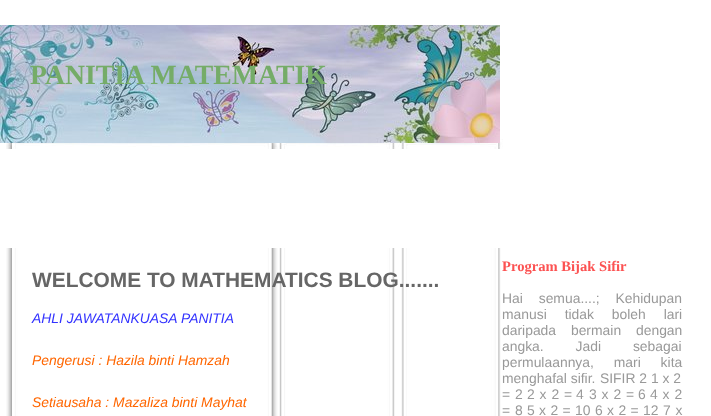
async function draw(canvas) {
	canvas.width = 711;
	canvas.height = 416;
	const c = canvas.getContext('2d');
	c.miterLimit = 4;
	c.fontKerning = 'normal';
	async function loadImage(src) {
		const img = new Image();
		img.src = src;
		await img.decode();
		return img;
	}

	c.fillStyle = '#fff';
	c.fillRect(0, 0, 711, 416);
	c.drawImage(await loadImage('img1.png'), 6, 27, 497, 122);
	c.drawImage(await loadImage('img2.png'), 0, 25, 500, 118);
	c.font = 'bold 27.75px Liberation Serif';
	c.fillStyle = '#75ac68';
	c.fillText('PANITIA MATEMATIK', 30, 84);
	c.drawImage(await loadImage('img3.png'), 6, 248, 495, 168);
	c.font = 'bold 20.9px Liberation Sans';
	c.fillStyle = '#666';
	c.fillText('WELCOME TO MATHEMATICS BLOG.......', 32, 287);
	c.font = 'italic 13.9px Liberation Sans';
	c.fillStyle = '#33f';
	c.fillText('AHLI JAWATANKUASA PANITIA', 32, 323);
	c.fillStyle = '#f60';
	c.fillText('Pengerusi : Hazila binti Hamzah', 32, 365);
	c.fillText('Setiausaha : Mazaliza binti Mayhat', 32, 407);
	c.font = 'bold 14.6px Liberation Serif';
	c.fillStyle = '#fc5252';
	c.fillText('Program Bijak Sifir', 502, 271);
	c.wordSpacing = '12px';
	c.font = '13.9px Liberation Sans';
	c.fillStyle = '#999';
	c.fillText('Hai semua....; Kehidupan', 502, 303);
	c.wordSpacing = '14px';
	c.fillText('manusi tidak boleh lari', 502, 319);
	c.wordSpacing = '11px';
	c.fillText('daripada bermain dengan', 502, 335);
	c.wordSpacing = '28px';
	c.fillText('angka. Jadi sebagai', 502, 351);
	c.wordSpacing = '16px';
	c.fillText('permulaannya, mari kita', 502, 367);
	c.wordSpacing = '0px';
	for (const [text, x, y] of [
		['menghafal sifir.', 502, 383],
		['SIFIR 2 1 x 2', 600, 383],
		['=', 502, 399],
		['2', 515, 399],
	]) {
		c.fillText(text, x, y);
	}
	c.wordSpacing = '1px';
	c.fillText('2 x 2 =', 527, 399);
	c.wordSpacing = '0px';
	c.fillText('4', 576, 399);
	c.wordSpacing = '1px';
	c.fillText('3 x 2 =', 589, 399);
	c.wordSpacing = '0px';
	c.fillText('6', 638, 399);
	c.wordSpacing = '1px';
	c.fillText('4 x 2', 650, 399);
	c.wordSpacing = '0px';
	c.fillText('=', 502, 415);
	c.fillText('8', 515, 415);
	c.wordSpacing = '0.5px';
	c.fillText('5 x 2 = 10', 527, 415);
	c.fillText('6 x 2 = 12', 595, 415);
	c.wordSpacing = '1px';
	c.fillText('7 x', 663, 415);
}

draw(document.querySelector('canvas'));
